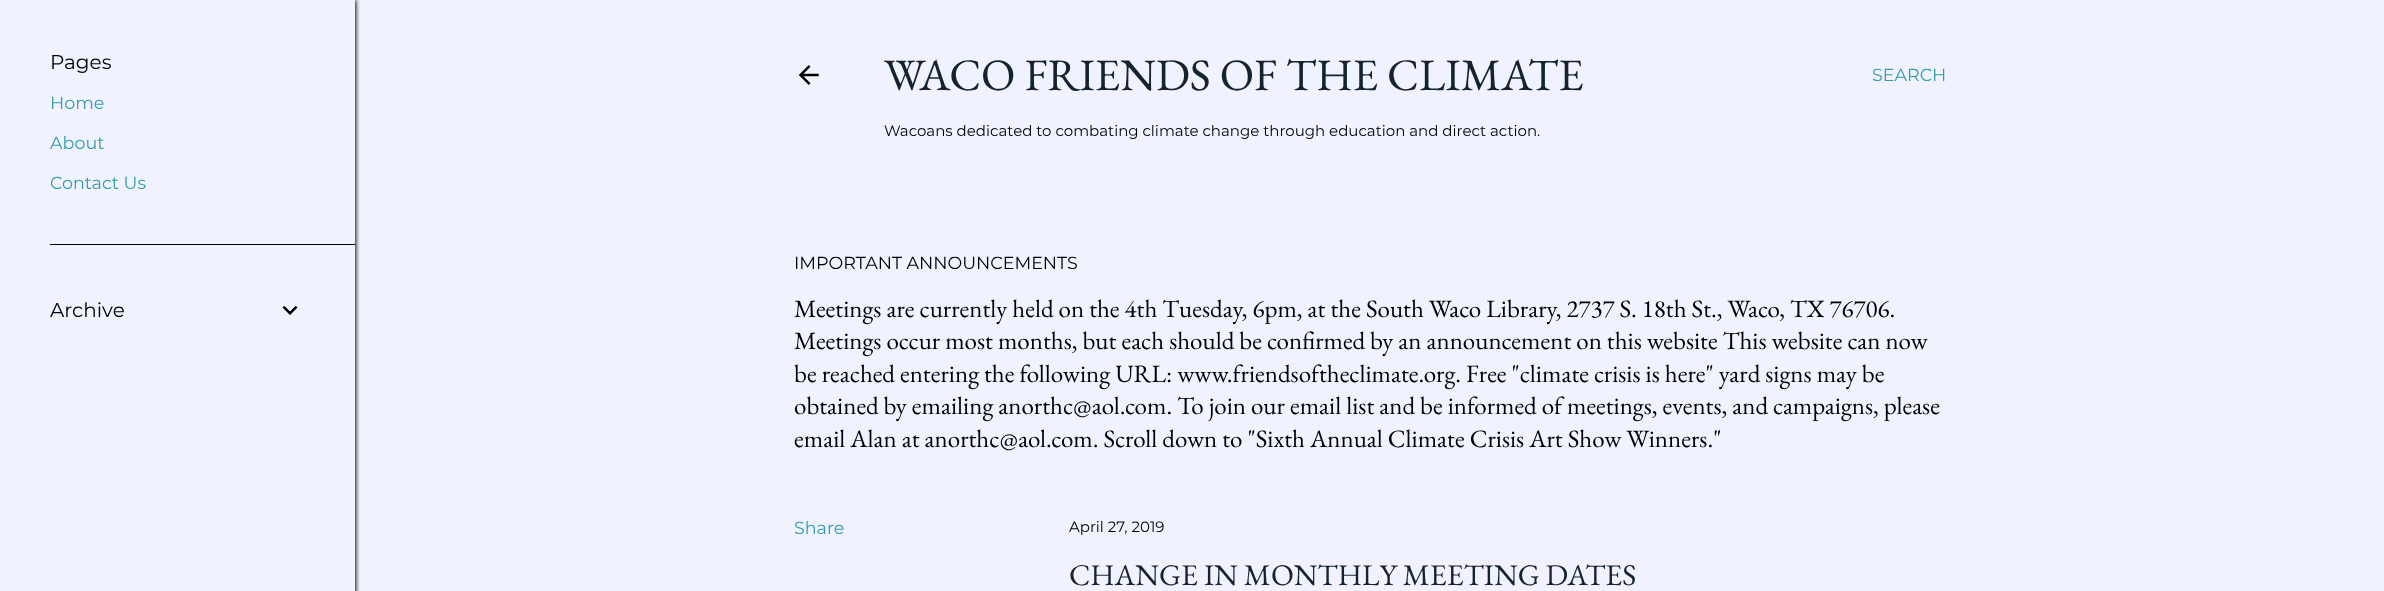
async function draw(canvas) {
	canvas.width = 2384;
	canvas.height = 591;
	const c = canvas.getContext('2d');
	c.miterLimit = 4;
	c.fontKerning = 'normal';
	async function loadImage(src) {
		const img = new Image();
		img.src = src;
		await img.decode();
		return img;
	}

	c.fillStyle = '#f0f3fd';
	c.fillRect(0, 0, 2384, 591);
	c.save();
	c.beginPath();
	c.rect(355, 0, 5, 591);
	c.clip();
	c.fillStyle = '#000';
	c.filter = 'blur(2px)';
	c.beginPath();
	c.rect(1, 0, 355, 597);
	c.fill();
	c.filter = 'none';
	c.restore();
	c.font = '20px Montserrat';
	c.fillStyle = '#000';
	c.fillText('Pages', 50, 69);
	c.font = '17.5px Montserrat';
	c.fillStyle = '#339da9';
	for (const [text, x, y] of [
		['Home', 50, 109],
		['About', 50, 149],
		['Contact Us', 50, 189],
	]) {
		c.fillText(text, x, y);
	}
	c.fillStyle = '#000';
	c.fillRect(50, 244, 305, 1);
	c.font = '20px Montserrat';
	c.fillText('Archive', 50, 317);
	c.drawImage(await loadImage('img1.png'), 282, 305, 16, 10);
	c.drawImage(await loadImage('img2.png'), 799, 65, 20, 20);
	c.font = '45px EB Garamond';
	c.fillStyle = '#14232c';
	c.fillText('WACO FRIENDS OF THE CLIMATE', 884, 90);
	c.font = '15px Montserrat';
	c.fillStyle = '#000';
	c.fillText('Wacoans dedicated to combating climate change through education and direct action.', 884, 136);
	c.font = '17.5px Montserrat';
	c.fillStyle = '#339da9';
	c.fillText('SEARCH', 1872, 81);
	c.fillStyle = '#000';
	c.fillText('IMPORTANT ANNOUNCEMENTS', 794, 269);
	c.font = '25px EB Garamond';
	for (const [text, x, y] of [
		['Meetings are currently held on the 4th Tuesday, 6pm, at the South Waco Library, 2737 S. 18th St., Waco, TX 76706.', 794, 317],
		['Meetings occur most months, but each should be confirmed by an announcement on this website This website can now', 794, 349],
		['be reached entering the following URL: www.friendsoftheclimate.org. Free "climate crisis is here" yard signs may be', 794, 382],
		['obtained by emailing anorthc@aol.com. To join our email list and be informed of meetings, events, and campaigns, please', 794, 414],
		['email Alan at anorthc@aol.com. Scroll down to "Sixth Annual Climate Crisis Art Show Winners."', 794, 447],
	]) {
		c.fillText(text, x, y);
	}
	c.font = '17.5px Montserrat';
	c.fillStyle = '#339da9';
	c.fillText('Share', 794, 534);
	c.font = '15px Montserrat';
	c.fillStyle = '#000';
	c.fillText('April 27, 2019', 1069, 532);
	c.font = '30px EB Garamond';
	c.fillStyle = '#14232c';
	c.fillText('CHANGE IN MONTHLY MEETING DATES', 1069, 585);
}

draw(document.querySelector('canvas'));
